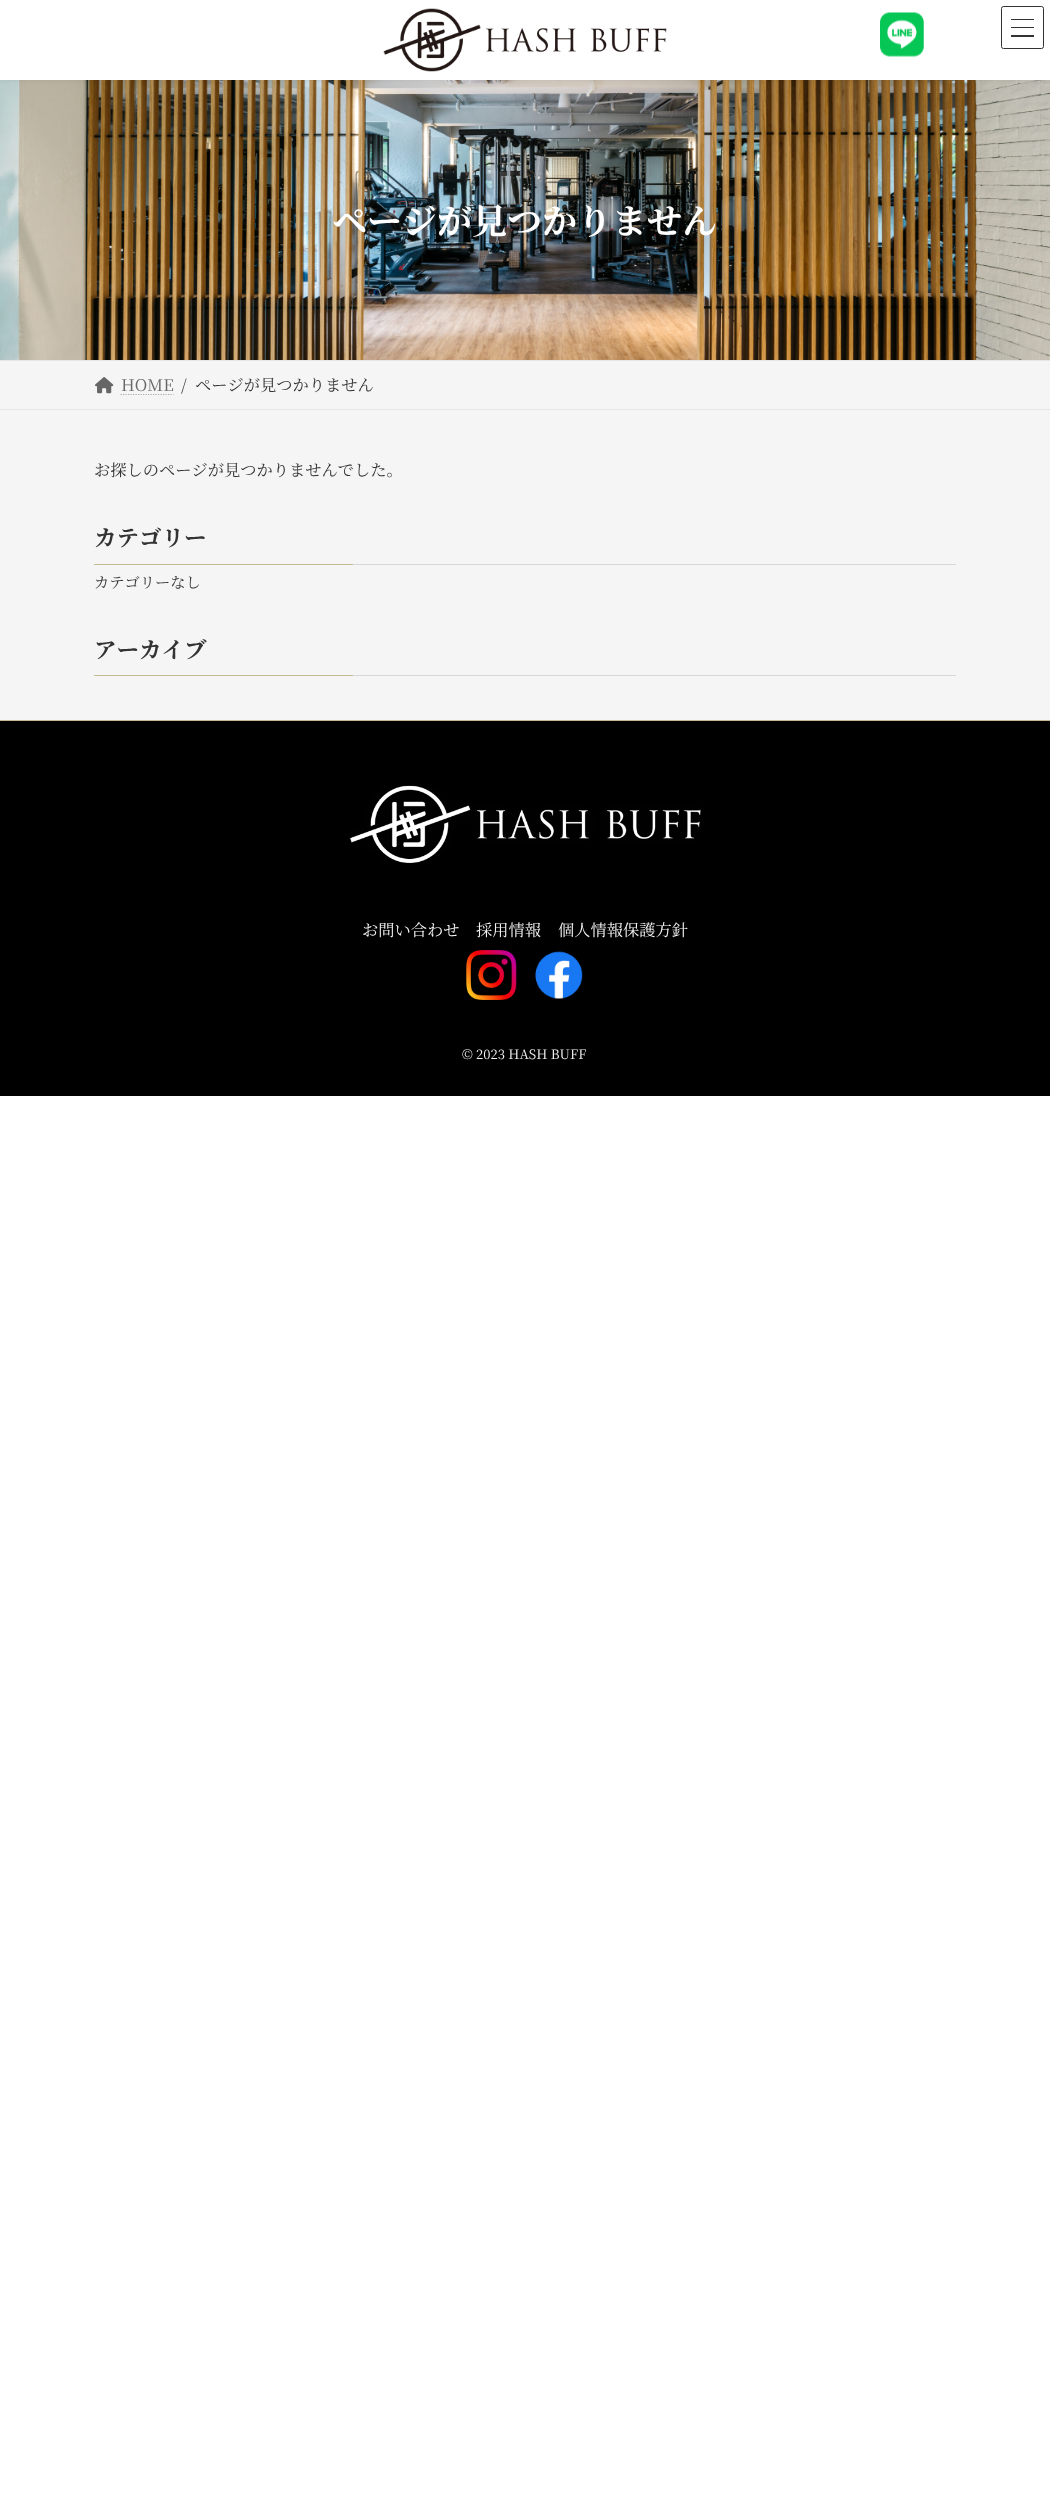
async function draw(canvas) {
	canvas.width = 1050;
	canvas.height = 2513;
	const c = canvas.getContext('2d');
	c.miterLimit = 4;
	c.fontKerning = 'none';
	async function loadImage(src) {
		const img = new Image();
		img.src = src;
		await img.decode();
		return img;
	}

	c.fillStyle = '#fff';
	c.fillRect(0, 0, 1050, 2513);
	c.fillStyle = '#f5f5f5';
	c.fillRect(0, 361, 1050, 359);
	c.drawImage(await loadImage('img3.png'), 0, 80, 1050, 280);
	c.fillStyle = '#0000000d';
	c.filter = 'blur(2px)';
	c.beginPath();
	c.rect(0, 1, 1050, 80);
	c.fill();
	c.filter = 'none';
	c.fillStyle = '#fff';
	c.fillRect(0, 0, 1050, 80);
	c.drawImage(await loadImage('img1.png'), 383, 8, 284, 64);
	c.drawImage(await loadImage('img2.png'), 880, 12, 44, 45);
	for (const [x, y, w, h, color] of [
		[1011, 19, 23, 1, '#333'],
		[1011, 27, 23, 1, '#333'],
		[1011, 35, 23, 2, '#333'],
	]) {
		c.fillStyle = color;
		c.fillRect(x, y, w, h);
	}
	c.beginPath();
	c.roundRect(1001.5, 6.5, 42, 42, 2);
	c.strokeStyle = '#333';
	c.stroke();
	c.font = 'bold 35px Noto Serif JP';
	c.fillStyle = '#fff';
	c.fillText('ページが見つかりません', 332, 234);
	c.fillStyle = '#e6e6e6';
	c.fillRect(0, 360, 1050, 1);
	c.fillRect(0, 409, 1050, 1);
	c.drawImage(await loadImage('img4.png'), 95, 377, 19, 17);
	c.font = '16.25px Noto Serif JP';
	c.fillStyle = '#666';
	c.fillText('HOME', 121, 391);
	c.beginPath();
	c.moveTo(120.5, 394.5);
	c.lineTo(173.5, 394.5);
	c.strokeStyle = '#acacac';
	c.lineWidth = 1.2;
	c.setLineDash([1.25, 1.25]);
	c.stroke();
	c.fillStyle = '#333';
	for (const [text, x, y] of [
		['/', 181, 391],
		['ページが見つかりません', 195, 391],
		['お探しのページが見つかりませんでした。', 94, 476],
	]) {
		c.fillText(text, x, y);
	}
	c.fillStyle = '#d8d8d8';
	c.fillRect(353, 564, 603, 1);
	c.font = 'bold 22.5px Noto Serif JP';
	c.fillStyle = '#333';
	c.fillText('カテゴリー', 94, 546);
	c.fillStyle = '#c7b994';
	c.fillRect(94, 564, 259, 1);
	c.font = '15.25px Noto Serif JP';
	c.fillStyle = '#333';
	c.fillText('カテゴリーなし', 94, 588);
	c.fillStyle = '#d8d8d8';
	c.fillRect(353, 675, 603, 1);
	c.font = 'bold 22.5px Noto Serif JP';
	c.fillStyle = '#333';
	c.fillText('アーカイブ', 94, 658);
	for (const [x, y, w, h, color] of [
		[94, 675, 259, 1, '#c7b994'],
		[0, 721, 1050, 375, '#000'],
		[0, 720, 1050, 1, '#c7b994'],
	]) {
		c.fillStyle = color;
		c.fillRect(x, y, w, h);
	}
	c.drawImage(await loadImage('img5.png'), 350, 785, 351, 78);
	c.font = '16.25px Noto Serif JP';
	c.fillStyle = '#f5f5f5';
	for (const [text, x, y] of [
		['お問い合わせ', 362, 936],
		['採用情報', 476, 936],
		['個人情報保護方針', 558, 936],
	]) {
		c.fillText(text, x, y);
	}
	c.drawImage(await loadImage('img6.png'), 466, 950, 51, 50);
	c.drawImage(await loadImage('img7.png'), 535, 951, 48, 48);
	c.font = '13.1px Noto Serif JP';
	c.fillText('© 2023 HASH BUFF', 462, 1059);
}

draw(document.querySelector('canvas'));
